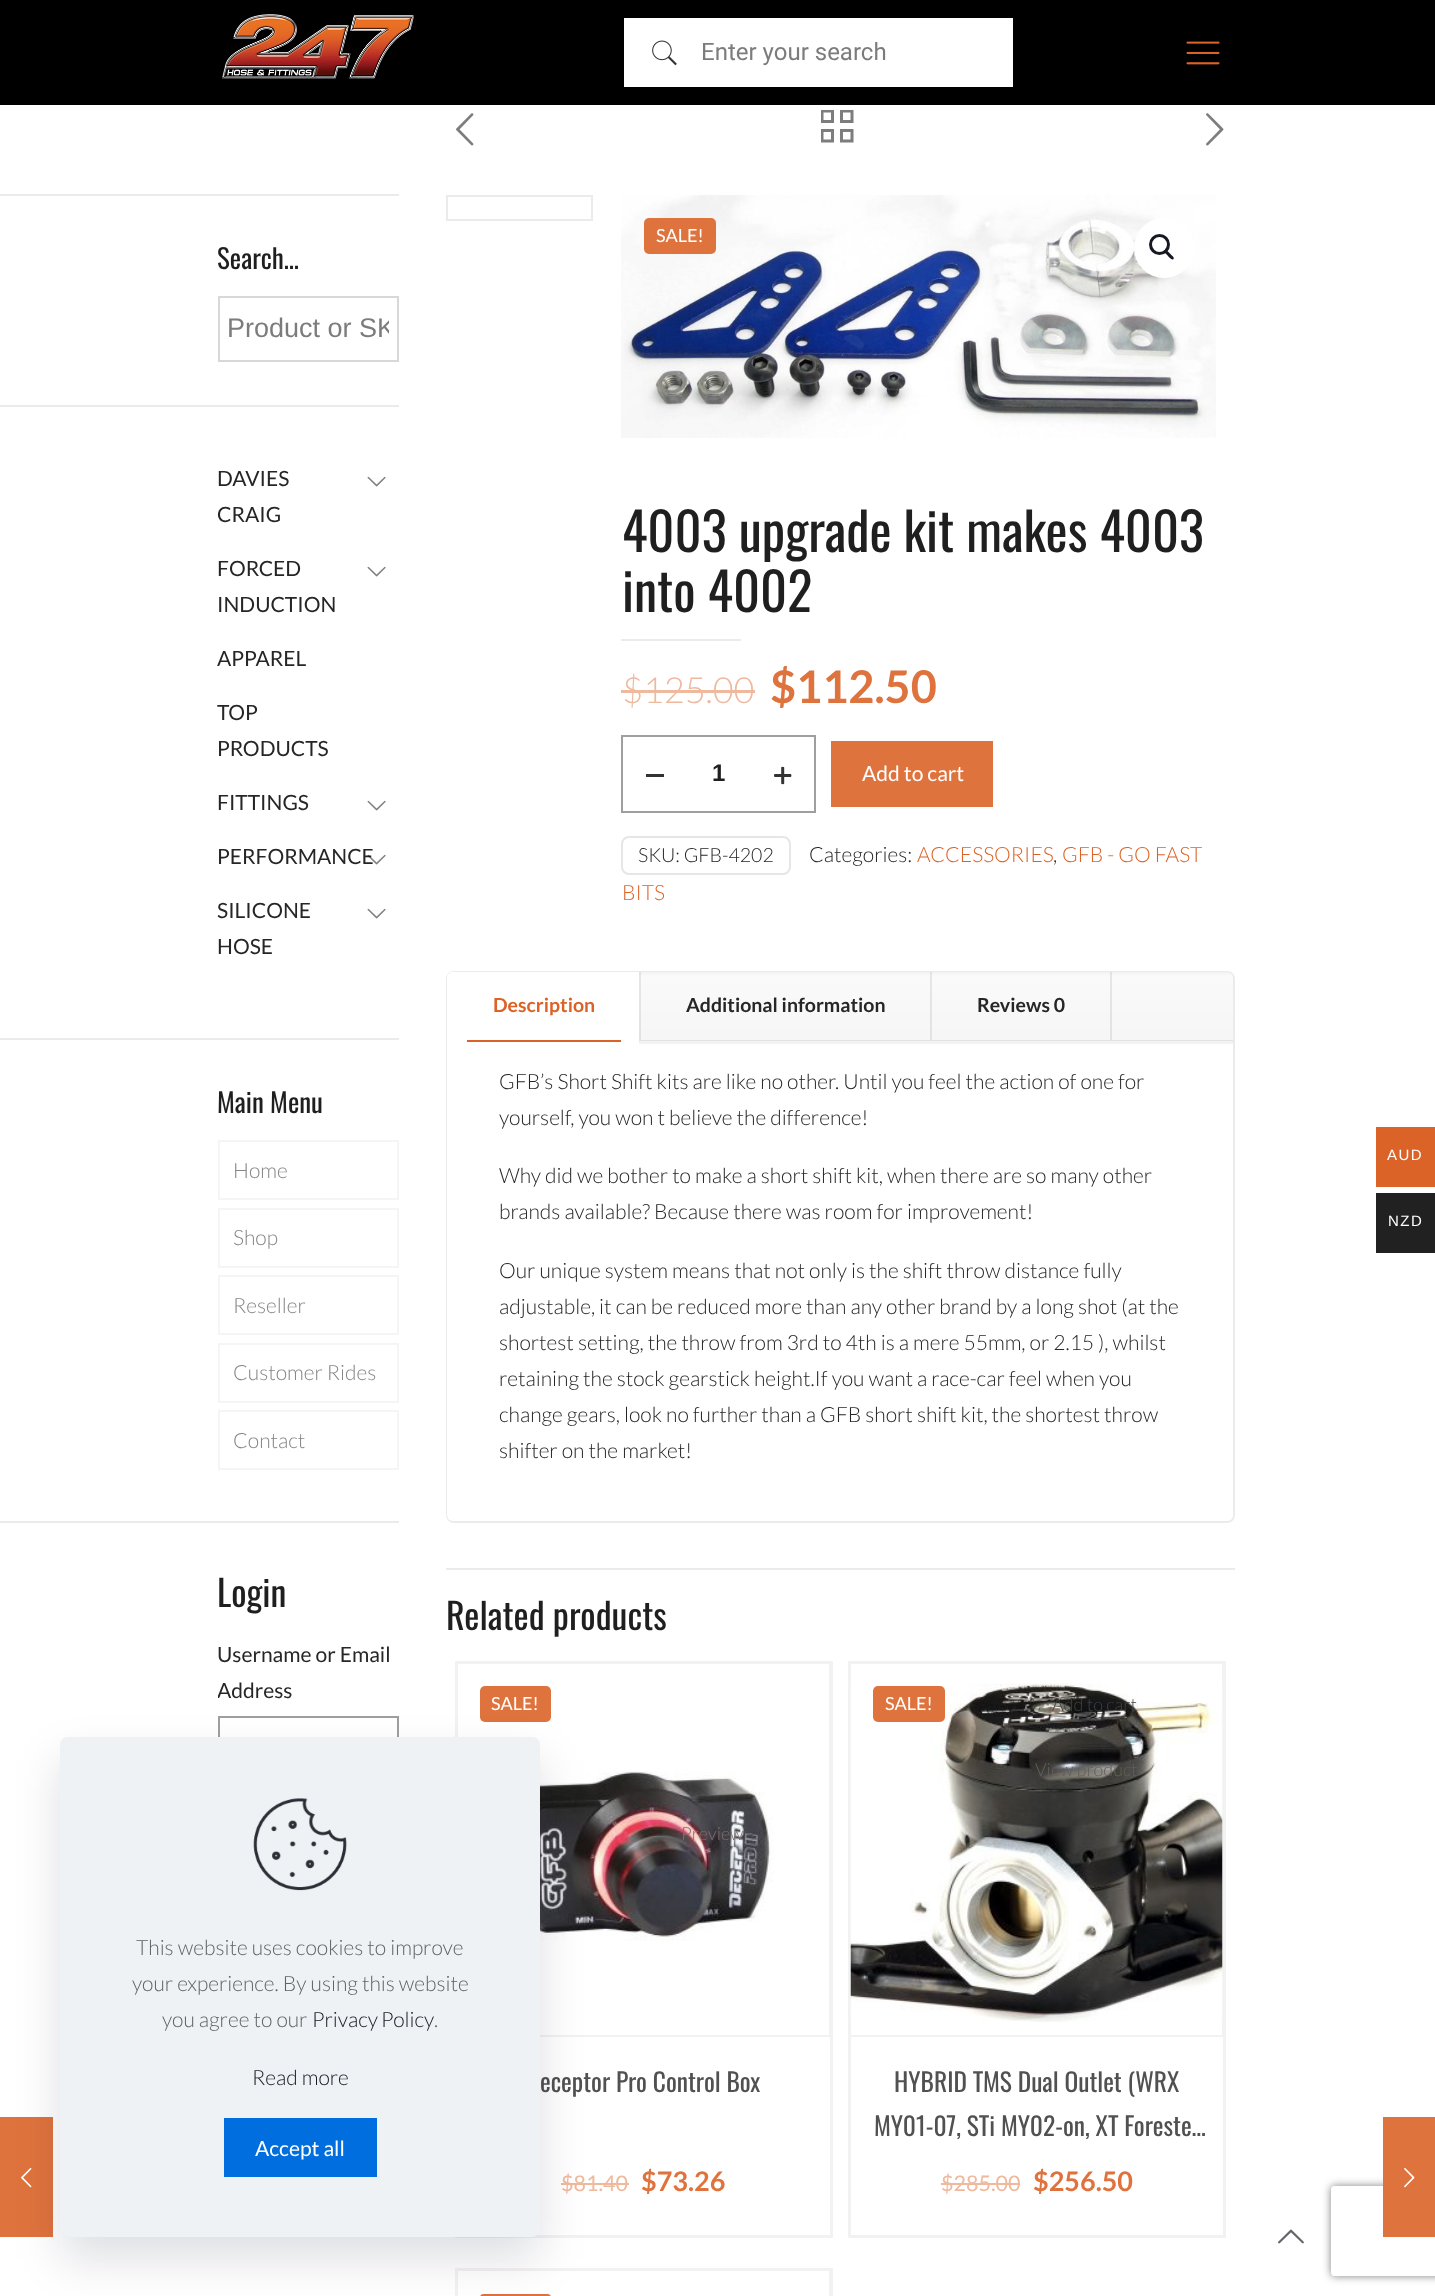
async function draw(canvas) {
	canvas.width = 1435;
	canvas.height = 2296;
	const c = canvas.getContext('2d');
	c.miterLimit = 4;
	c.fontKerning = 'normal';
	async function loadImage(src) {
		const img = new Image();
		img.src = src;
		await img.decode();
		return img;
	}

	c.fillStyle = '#fff';
	c.fillRect(0, 0, 1435, 2296);
	c.fillStyle = '#000';
	c.fillRect(0, 0, 1435, 105);
	c.drawImage(await loadImage('img1.png'), 222, 14, 193, 65);
	c.fillStyle = '#fff';
	c.fillRect(624, 18, 389, 69);
	c.drawImage(await loadImage('img2.png'), 652, 40, 25, 26);
	c.font = '24px Roboto';
	c.fillStyle = '#7c7c7c';
	c.fillText('Enter your search', 701, 60);
	c.drawImage(await loadImage('img3.png'), 1186, 41, 34, 24);
	c.fillStyle = '#ebebeb';
	c.fillRect(0, 194, 399, 2);
	c.font = '27px Oswald';
	c.fillStyle = '#1f1f1f';
	c.fillText('Search…', 217, 269);
	c.strokeStyle = '#d8d8d8';
	c.lineWidth = 2;
	c.strokeRect(219, 297, 179, 64);
	c.save();
	c.beginPath();
	c.rect(228, 314, 161, 31);
	c.clip();
	c.font = '27px Liberation Sans';
	c.fillStyle = '#7c7c7c';
	c.fillText('Product or SK', 227, 337);
	c.restore();
	c.fillStyle = '#ebebeb';
	c.fillRect(0, 405, 399, 2);
	c.font = '21px Lato';
	c.fillStyle = '#262626';
	c.fillText('DAVIES', 217, 486);
	c.fillText('CRAIG', 217, 522);
	c.drawImage(await loadImage('img4.png'), 367, 476, 19, 11);
	c.fillText('FORCED', 217, 576);
	c.fillText('INDUCTION', 217, 612);
	c.drawImage(await loadImage('img4.png'), 367, 566, 19, 11);
	for (const [text, x, y] of [
		['APPAREL', 217, 666],
		['TOP', 217, 720],
		['PRODUCTS', 217, 756],
		['FITTINGS', 217, 810],
	]) {
		c.fillText(text, x, y);
	}
	c.drawImage(await loadImage('img4.png'), 367, 800, 19, 11);
	c.fillText('PERFORMANCE', 217, 864);
	c.drawImage(await loadImage('img5.png'), 367, 854, 19, 11);
	c.fillText('SILICONE', 217, 918);
	c.fillText('HOSE', 217, 954);
	c.drawImage(await loadImage('img4.png'), 367, 908, 19, 11);
	c.fillStyle = '#ebebeb';
	c.fillRect(0, 1038, 399, 2);
	c.font = '27px Oswald';
	c.fillStyle = '#1f1f1f';
	c.fillText('Main Menu', 217, 1113);
	c.strokeStyle = '#f5f5f5';
	c.strokeRect(219, 1141, 179, 58);
	c.font = '300 21px Lato';
	c.fillStyle = '#858585';
	c.fillText('Home', 233, 1178);
	c.strokeRect(219, 1209, 179, 58);
	c.fillText('Shop', 233, 1245);
	c.strokeRect(219, 1276, 179, 58);
	c.fillText('Reseller', 233, 1313);
	c.strokeRect(219, 1344, 179, 58);
	c.fillText('Customer Rides', 233, 1380);
	c.strokeRect(219, 1411, 179, 58);
	c.fillText('Contact', 233, 1448);
	c.fillStyle = '#ebebeb';
	c.fillRect(0, 1521, 399, 2);
	c.font = '36px Oswald';
	c.fillStyle = '#1f1f1f';
	c.fillText('Login', 217, 1607);
	c.font = '21px Lato';
	c.fillStyle = '#262626';
	c.fillText('Username or Email', 217, 1662);
	c.save();
	c.beginPath();
	c.rect(218, 1568, 181, 468);
	c.clip();
	c.fillText('Address', 217, 1698);
	c.restore();
	c.strokeStyle = '#9f9f9f';
	c.strokeRect(219, 1717, 179, 58);
	c.drawImage(await loadImage('img6.png'), 456, 113, 18, 33);
	c.drawImage(await loadImage('img7.png'), 821, 110, 33, 33);
	c.drawImage(await loadImage('img8.png'), 1206, 113, 18, 33);
	c.strokeStyle = '#ebebeb';
	c.strokeRect(447, 196, 145, 24);
	c.drawImage(await loadImage('img9.png'), 621, 195, 595, 243);
	c.fillStyle = '#df733d';
	c.beginPath();
	c.roundRect(644, 218, 72, 36, 5);
	c.fill();
	c.font = '18px Lato';
	c.fillStyle = '#fff';
	c.fillText('SALE!', 656, 242);
	c.beginPath();
	c.arc(1164, 248, 30, 0, 2 * Math.PI);
	c.fill();
	c.beginPath();
	c.arc(1159.5, 244.5, 9, 0, 2 * Math.PI);
	c.strokeStyle = '#161922';
	c.lineWidth = 3;
	c.stroke();
	c.fillStyle = '#161922';
	c.beginPath();
	c.moveTo(1165, 251);
	c.bezierCurveTo(1166.5, 249, 1169.5, 253, 1170.5, 254);
	c.bezierCurveTo(1171, 255, 1175, 257.5, 1173.5, 259);
	c.bezierCurveTo(1172, 261, 1169, 257, 1168, 256);
	c.bezierCurveTo(1167.5, 255, 1163.5, 252.5, 1165, 251);
	c.closePath();
	c.fill();
	c.font = '52.5px Oswald';
	c.fillStyle = '#1f1f1f';
	c.fillText('4003 upgrade kit makes 4003', 622, 552);
	c.fillText('into 4002', 622, 612);
	c.fillStyle = '#ebebeb';
	c.fillRect(621, 639, 120, 2);
	c.font = '300 36px Lato';
	c.fillStyle = '#efb99e';
	c.fillText('$125.00', 622, 703);
	c.fillRect(621, 690, 134, 3);
	c.font = 'bold 45px Lato';
	c.fillStyle = '#df733d';
	c.fillText('$112.50', 770, 703);
	c.strokeStyle = '#9f9f9f';
	c.lineWidth = 2;
	c.strokeRect(622, 736, 193, 76);
	c.fillStyle = '#333';
	c.fillRect(646, 774, 18, 3);
	c.font = 'bold 24px Liberation Sans';
	c.fillStyle = '#1f1f1f';
	c.fillText('1', 712, 781);
	c.drawImage(await loadImage('img10.png'), 774, 766, 18, 19);
	c.fillStyle = '#df733d';
	c.fillRect(831, 741, 162, 66);
	c.font = '21px Lato';
	c.fillStyle = '#fff';
	c.fillText('Add to cart', 862, 781);
	c.beginPath();
	c.roundRect(622, 837, 168, 37, 7);
	c.strokeStyle = '#e6e6e6';
	c.stroke();
	c.font = '300 19.5px Lato';
	c.fillStyle = '#262626';
	c.fillText('SKU: GFB-4202', 638, 862);
	c.font = '300 21px Lato';
	c.fillText('Categories:', 809, 862);
	c.fillStyle = '#db6327';
	c.fillText('ACCESSORIES', 917, 862);
	c.fillStyle = '#262626';
	c.fillText(',', 1053, 862);
	c.fillStyle = '#db6327';
	c.fillText('GFB - GO FAST', 1062, 862);
	c.fillText('BITS', 622, 900);
	c.beginPath();
	c.roundRect(447, 972, 787, 550, 7);
	c.strokeStyle = '#ebebeb';
	c.stroke();
	c.drawImage(await loadImage('img11.png'), 447, 972, 786, 69);
	c.fillStyle = '#00000014';
	c.fillRect(639, 1040, 594, 1);
	c.fillRect(639, 972, 2, 68);
	c.fillStyle = '#fff';
	c.beginPath();
	c.roundRect(447, 972, 192, 68, [6, 0, 0, 0]);
	c.fill();
	c.font = 'bold 19.5px Lato';
	c.fillStyle = '#db6327';
	c.fillText('Description', 493, 1012);
	c.fillStyle = '#fff';
	c.fillRect(447, 1040, 192, 1);
	c.beginPath();
	c.roundRect(447, 1041, 786, 480, [0, 0, 6, 6]);
	c.fill();
	c.fillStyle = '#db6327';
	c.fillRect(467, 1040, 154, 2);
	c.fillStyle = '#00000014';
	c.fillRect(930, 972, 2, 68);
	c.fillStyle = '#262626';
	c.fillText('Additional information', 686, 1012);
	c.fillStyle = '#00000014';
	c.fillRect(1110, 972, 2, 68);
	c.fillStyle = '#262626';
	c.fillText('Reviews 0', 977, 1012);
	c.fillStyle = '#f2f2f2';
	c.fillRect(639, 1041, 594, 3);
	c.font = '300 21px Lato';
	c.fillStyle = '#262626';
	for (const [text, x, y] of [
		['GFB’s Short Shift kits are like no other. Until you feel the action of one for', 499, 1089],
		['yourself, you won t believe the difference!', 499, 1125],
		['Why did we bother to make a short shift kit, when there are so many other', 499, 1183],
		['brands available? Because there was room for improvement!', 499, 1219],
		['Our unique system means that not only is the shift throw distance fully', 499, 1278],
		['adjustable, it can be reduced more than any other brand by a long shot (at the', 499, 1314],
		['shortest setting, the throw from 3rd to 4th is a mere 55mm, or 2.15 ), whilst', 499, 1350],
		['retaining the stock gearstick height.If you want a race-car feel when you', 499, 1386],
		['change gears, look no further than a GFB short shift kit, the shortest throw', 499, 1422],
		['shifter on the market!', 499, 1458],
	]) {
		c.fillText(text, x, y);
	}
	c.fillStyle = '#ebebeb';
	c.fillRect(446, 1568, 789, 2);
	c.font = '36px Oswald';
	c.fillStyle = '#1f1f1f';
	c.fillText('Related products', 446, 1630);
	c.strokeStyle = '#f2f2f2';
	c.strokeRect(456, 1662, 376, 575);
	c.strokeRect(457, 1663, 373, 373);
	c.fillStyle = '#df733d';
	c.beginPath();
	c.roundRect(480, 1686, 71, 36, 5);
	c.fill();
	c.font = '18px Lato';
	c.fillStyle = '#fff';
	c.fillText('SALE!', 491, 1710);
	c.drawImage(await loadImage('img12.png'), 540, 1771, 234, 170);
	c.font = '300 18px Lato';
	c.fillStyle = '#806e72';
	c.fillText('Preview', 681, 1840);
	c.fillStyle = '#f2f2f2';
	c.fillRect(830, 2037, 1, 200);
	c.fillRect(532, 2235, 299, 1);
	c.font = '25.5px Oswald';
	c.fillStyle = '#515151';
	c.fillText('eceptor Pro Control Box', 540, 2092);
	c.font = '21.5px Lato';
	c.fillStyle = '#efb99e';
	c.fillText('$81.40', 561, 2191);
	c.fillRect(561, 2183, 68, 2);
	c.font = 'bold 27px Lato';
	c.fillStyle = '#df733d';
	c.fillText('$73.26', 641, 2191);
	c.strokeRect(849, 1662, 376, 575);
	c.strokeRect(850, 1663, 373, 373);
	c.drawImage(await loadImage('img13.png'), 850, 1683, 373, 339);
	c.beginPath();
	c.roundRect(873, 1686, 72, 36, 5);
	c.fill();
	c.font = '18px Lato';
	c.fillStyle = '#fff';
	c.fillText('SALE!', 885, 1710);
	c.font = '300 18px Lato';
	c.fillStyle = '#41413f';
	c.fillText('Add to cart', 1052, 1711);
	c.fillStyle = '#62605c';
	c.fillText('View product', 1035, 1776);
	for (const [x, y, w, h, color] of [
		[1223, 2037, 1, 200, '#f2f2f2'],
		[849, 2235, 375, 1, '#f2f2f2'],
		[850, 2037, 1, 200, '#f2f2f2'],
	]) {
		c.fillStyle = color;
		c.fillRect(x, y, w, h);
	}
	c.font = '25.5px Oswald';
	c.fillStyle = '#515151';
	c.fillText('HYBRID TMS Dual Outlet (WRX', 894, 2092);
	c.fillText('MY01-07, STi MY02-on, XT Foreste…', 874, 2136);
	c.font = '21.5px Lato';
	c.fillStyle = '#efb99e';
	c.fillText('$285.00', 941, 2191);
	c.fillRect(941, 2183, 79, 2);
	c.font = 'bold 27px Lato';
	c.fillStyle = '#df733d';
	c.fillText('$256.50', 1033, 2191);
	c.strokeRect(456, 2269, 376, 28);
	c.strokeRect(457, 2271, 373, 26);
	c.fillStyle = '#fff';
	c.fillRect(458, 2271, 371, 1);
	c.fillStyle = '#df733d';
	c.beginPath();
	c.roundRect(480, 2294, 71, 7, 5);
	c.fill();
	c.fillStyle = '#db6327';
	c.fillRect(1376, 1127, 59, 60);
	c.letterSpacing = '1.5px';
	c.font = '15px Liberation Sans';
	c.fillStyle = '#fff';
	c.fillText('AUD', 1387, 1160);
	c.fillStyle = '#212121';
	c.fillRect(1376, 1193, 59, 60);
	c.fillStyle = '#fff';
	c.fillText('NZD', 1388, 1226);
	c.fillStyle = '#df733d';
	c.fillRect(0, 2117, 53, 120);
	c.drawImage(await loadImage('img15.png'), 21, 2167, 11, 21);
	c.fillStyle = '#01072721';
	c.filter = 'blur(22.5px)';
	c.beginPath();
	c.roundRect(60, 1760, 480, 499, 8);
	c.fill();
	c.filter = 'none';
	c.fillStyle = '#eef2f5';
	c.beginPath();
	c.roundRect(60, 1737, 480, 500, 8);
	c.fill();
	c.drawImage(await loadImage('img14.png'), 253, 1798, 94, 93);
	c.letterSpacing = '0px';
	c.font = '300 21px Lato';
	c.fillStyle = '#626262';
	for (const [text, x, y] of [
		['This website uses cookies to improve', 136, 1955],
		['your experience. By using this website', 132, 1991],
		['you agree to our', 162, 2027],
	]) {
		c.fillText(text, x, y);
	}
	c.wordSpacing = '-1px';
	c.fillStyle = '#161922';
	c.fillText('Privacy Policy', 312, 2027);
	c.wordSpacing = '0px';
	c.fillStyle = '#626262';
	c.fillText('.', 434, 2027);
	c.fillStyle = '#161922';
	c.fillText('Read more', 252, 2085);
	c.fillStyle = '#006edf';
	c.fillRect(224, 2118, 153, 59);
	c.font = '21px Lato';
	c.fillStyle = '#fff';
	c.fillText('Accept all', 255, 2156);
	c.save();
	c.beginPath();
	c.moveTo(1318, 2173);
	c.lineTo(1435, 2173);
	c.lineTo(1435, 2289);
	c.lineTo(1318, 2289);
	c.closePath();
	c.moveTo(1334, 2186);
	c.lineTo(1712, 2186);
	c.bezierCurveTo(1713.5, 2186, 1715, 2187.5, 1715, 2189);
	c.lineTo(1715, 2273);
	c.bezierCurveTo(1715, 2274.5, 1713.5, 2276, 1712, 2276);
	c.lineTo(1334, 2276);
	c.bezierCurveTo(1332.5, 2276, 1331, 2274.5, 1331, 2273);
	c.lineTo(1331, 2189);
	c.bezierCurveTo(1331, 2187.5, 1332.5, 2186, 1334, 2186);
	c.closePath();
	c.clip('evenodd');
	c.fillStyle = '#808080';
	c.filter = 'blur(4px)';
	c.beginPath();
	c.roundRect(1331, 2186, 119, 90, 3);
	c.fill();
	c.filter = 'none';
	c.restore();
	c.fillStyle = '#df733d';
	c.fillRect(1383, 2117, 52, 120);
	c.drawImage(await loadImage('img16.png'), 1404, 2167, 11, 21);
	c.drawImage(await loadImage('img17.png'), 1278, 2229, 26, 15);
}

draw(document.querySelector('canvas'));
